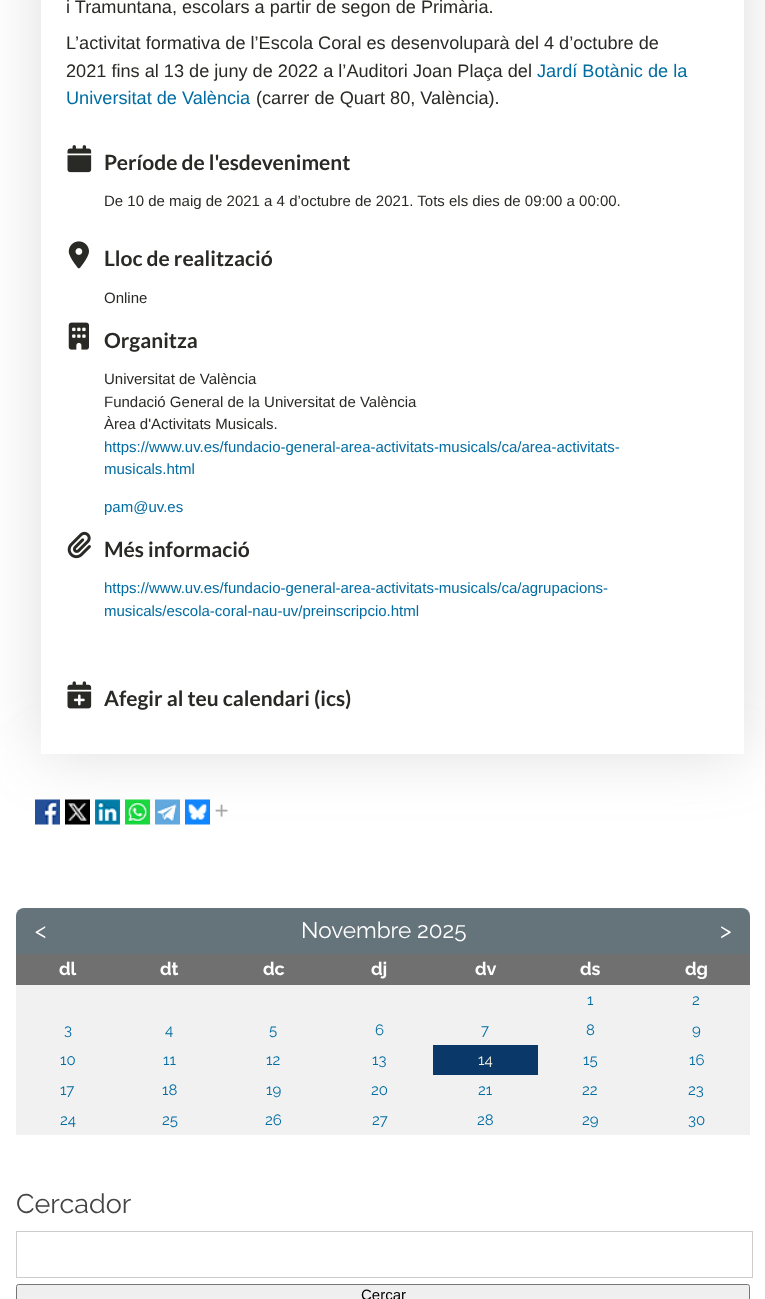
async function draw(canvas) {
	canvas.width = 765;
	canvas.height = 1299;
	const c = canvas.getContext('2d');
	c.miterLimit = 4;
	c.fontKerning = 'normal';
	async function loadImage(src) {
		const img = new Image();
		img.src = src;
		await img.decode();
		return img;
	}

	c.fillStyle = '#fff';
	c.fillRect(0, 0, 765, 1299);
	c.fillStyle = '#7575753d';
	c.filter = 'blur(31px)';
	c.beginPath();
	c.rect(41, -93, 703, 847);
	c.fill();
	c.filter = 'none';
	c.fillStyle = '#fff';
	c.fillRect(41, 0, 703, 754);
	c.font = '18.15px Liberation Sans';
	c.fillStyle = '#292a25';
	for (const [text, x, y] of [
		['i Tramuntana, escolars a partir de segon de Primària.', 66, 13],
		['L’activitat formativa de l’Escola Coral es desenvoluparà del 4 d’octubre de', 66, 49],
		['2021 fins al 13 de juny de 2022 a l’Auditori Joan Plaça del', 66, 77],
	]) {
		c.fillText(text, x, y);
	}
	c.fillStyle = '#016ca2';
	c.fillText('Jardí Botànic de la', 537, 77);
	c.fillText('Universitat de València', 66, 104);
	c.fillStyle = '#292a25';
	c.fillText('(carrer de Quart 80, València).', 256, 104);
	c.drawImage(await loadImage('img1.png'), 67, 145, 25, 28);
	c.font = 'bold 21px Lato';
	c.fillText('Període de l\'esdeveniment', 104, 170);
	c.font = '15px Liberation Sans';
	c.fillText('De 10 de maig de 2021 a 4 d’octubre de 2021. Tots els dies de 09:00 a 00:00.', 104, 206);
	c.drawImage(await loadImage('img2.png'), 68, 241, 21, 28);
	c.font = 'bold 21px Lato';
	c.fillText('Lloc de realització', 104, 266);
	c.font = '15px Liberation Sans';
	c.fillText('Online', 104, 303);
	c.drawImage(await loadImage('img3.png'), 68, 322, 21, 28);
	c.font = 'bold 21px Lato';
	c.fillText('Organitza', 104, 348);
	c.font = '15px Liberation Sans';
	for (const [text, x, y] of [
		['Universitat de València', 104, 384],
		['Fundació General de la Universitat de València', 104, 407],
		['Àrea d\'Activitats Musicals.', 104, 429],
	]) {
		c.fillText(text, x, y);
	}
	c.fillStyle = '#016ca2';
	for (const [text, x, y] of [
		['https://www.uv.es/fundacio-general-area-activitats-musicals/ca/area-activitats-', 104, 452],
		['musicals.html', 104, 474],
		['pam@uv.es', 104, 512],
	]) {
		c.fillText(text, x, y);
	}
	c.drawImage(await loadImage('img4.png'), 67, 531, 24, 28);
	c.font = 'bold 21px Lato';
	c.fillStyle = '#292a25';
	c.fillText('Més informació', 104, 557);
	c.font = '15px Liberation Sans';
	c.fillStyle = '#016ca2';
	c.fillText('https://www.uv.es/fundacio-general-area-activitats-musicals/ca/agrupacions-', 104, 593);
	c.fillText('musicals/escola-coral-nau-uv/preinscripcio.html', 104, 616);
	c.drawImage(await loadImage('img5.png'), 67, 681, 25, 28);
	c.font = 'bold 21px Lato';
	c.fillStyle = '#292a25';
	c.fillText('Afegir al teu calendari (ics)', 104, 706);
	c.drawImage(await loadImage('img6.png'), 35, 799, 25, 26);
	c.drawImage(await loadImage('img7.png'), 65, 799, 25, 26);
	c.drawImage(await loadImage('img8.png'), 95, 799, 25, 26);
	c.drawImage(await loadImage('img9.png'), 125, 799, 25, 26);
	c.drawImage(await loadImage('img10.png'), 155, 799, 25, 26);
	c.drawImage(await loadImage('img11.png'), 185, 799, 25, 26);
	c.drawImage(await loadImage('img12.png'), 215, 804, 13, 13);
	c.fillStyle = '#65737b';
	c.beginPath();
	c.roundRect(16, 908, 734, 46, [8, 8, 0, 0]);
	c.fill();
	c.font = '22.5px Raleway';
	c.fillStyle = '#fff';
	for (const [text, x, y] of [
		['<', 35, 938],
		['Novembre 2025', 301, 938],
		['>', 720, 938],
	]) {
		c.fillText(text, x, y);
	}
	c.fillStyle = '#f1f1f1';
	c.fillRect(16, 985, 734, 150);
	c.fillStyle = '#707070';
	c.fillRect(16, 954, 734, 31);
	c.font = 'bold 18px Raleway';
	c.fillStyle = '#fff';
	for (const [text, x, y] of [
		['dl', 59, 975],
		['dt', 160, 975],
		['dc', 263, 975],
		['dj', 371, 975],
		['dv', 475, 975],
		['ds', 580, 975],
		['dg', 685, 975],
	]) {
		c.fillText(text, x, y);
	}
	c.font = '15px Raleway';
	c.fillStyle = '#016ca2';
	for (const [text, x, y] of [
		['1', 587, 1005],
		['2', 692, 1005],
		['3', 64, 1035],
		['4', 165, 1035],
		['5', 269, 1035],
		['6', 375, 1035],
		['7', 481, 1035],
		['8', 586, 1035],
		['9', 692, 1035],
		['10', 60, 1065],
		['11', 163, 1065],
		['12', 266, 1065],
		['13', 372, 1065],
	]) {
		c.fillText(text, x, y);
	}
	c.fillStyle = '#0a3869';
	c.fillRect(433, 1045, 105, 30);
	c.fillStyle = '#f9f5e2';
	c.fillText('14', 478, 1065);
	c.fillStyle = '#016ca2';
	for (const [text, x, y] of [
		['15', 583, 1065],
		['16', 689, 1065],
		['17', 60, 1095],
		['18', 162, 1095],
		['19', 266, 1095],
		['20', 371, 1095],
		['21', 478, 1095],
		['22', 582, 1095],
		['23', 688, 1095],
		['24', 60, 1125],
		['25', 162, 1125],
		['26', 265, 1125],
		['27', 372, 1125],
		['28', 477, 1125],
		['29', 582, 1125],
		['30', 688, 1125],
	]) {
		c.fillText(text, x, y);
	}
	c.font = '27px Raleway';
	c.fillStyle = '#444';
	c.fillText('Cercador', 16, 1213);
	c.strokeStyle = '#ccc';
	c.strokeRect(16.5, 1231.5, 736, 46);
	c.fillStyle = '#efefef';
	c.beginPath();
	c.roundRect(16.5, 1284.5, 733, 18, 2);
	c.fill();
	c.strokeStyle = '#767676';
	c.stroke();
	c.font = '15px Liberation Sans';
	c.fillStyle = '#000';
	c.fillText('Cercar', 361, 1300);
}

draw(document.querySelector('canvas'));
